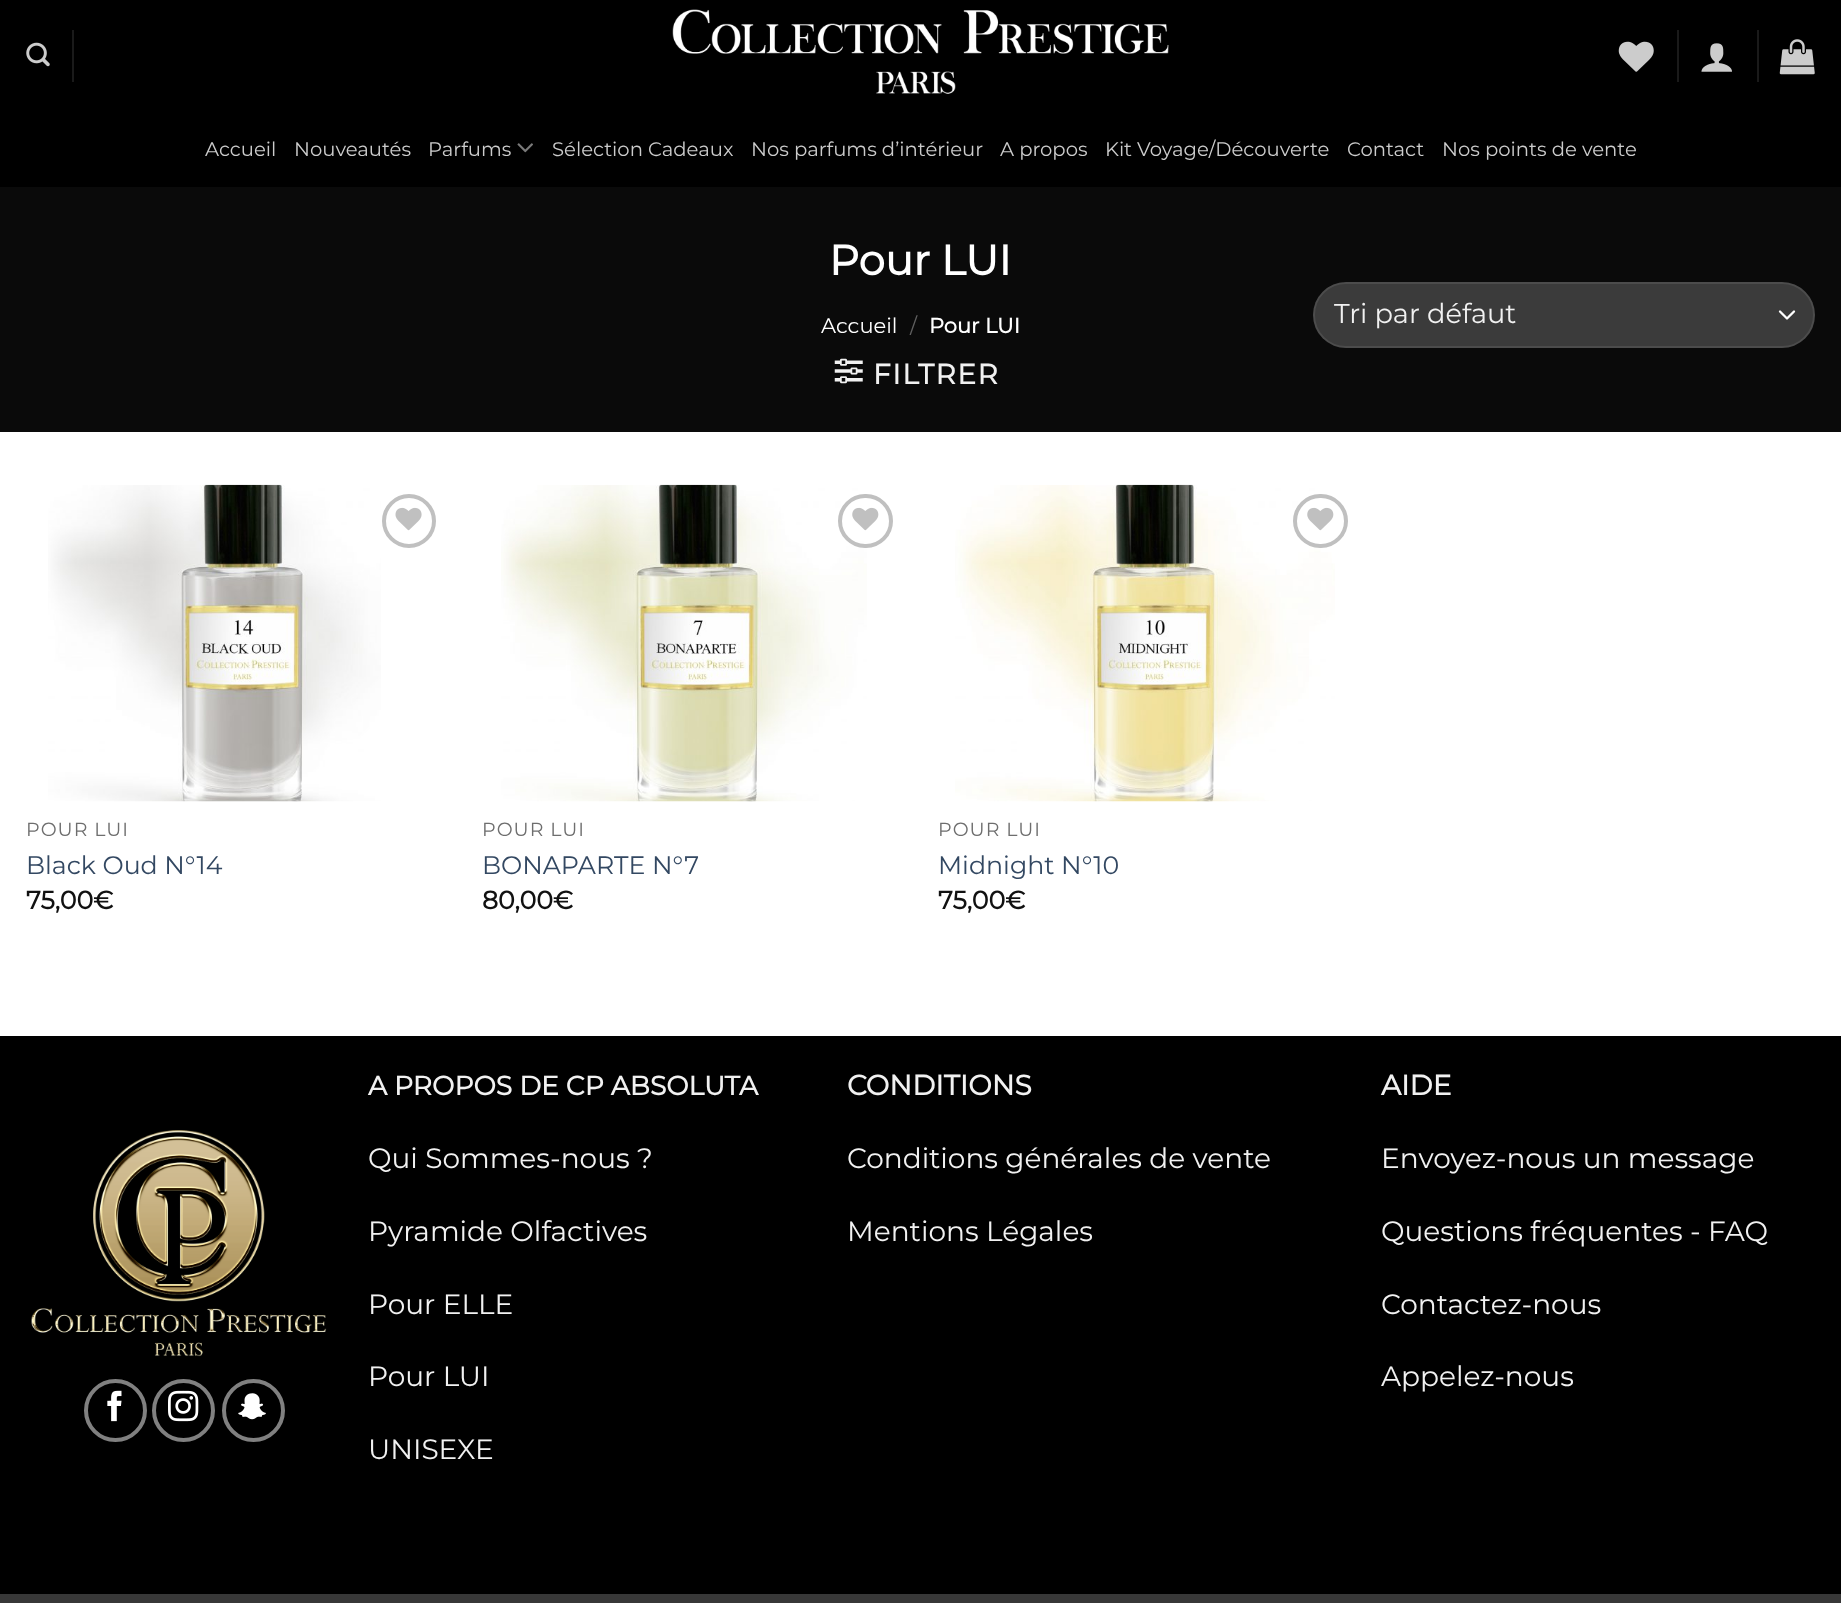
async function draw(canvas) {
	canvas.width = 1841;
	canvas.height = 1603;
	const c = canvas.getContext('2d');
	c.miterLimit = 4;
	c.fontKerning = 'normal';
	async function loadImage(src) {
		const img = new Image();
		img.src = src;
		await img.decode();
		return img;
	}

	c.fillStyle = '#fff';
	c.fillRect(0, 0, 1841, 1603);
	c.fillStyle = '#000';
	c.fillRect(0, 0, 1841, 187);
	c.drawImage(await loadImage('img1.png'), 26, 42, 24, 25);
	c.fillStyle = '#1a1a1a';
	c.fillRect(72, 30, 2, 52);
	c.drawImage(await loadImage('img2.png'), 672, 9, 497, 85);
	c.drawImage(await loadImage('img3.png'), 1618, 41, 36, 31);
	c.fillRect(1677, 30, 2, 52);
	c.drawImage(await loadImage('img4.png'), 1701, 43, 31, 29);
	c.fillRect(1757, 30, 2, 52);
	c.drawImage(await loadImage('img5.png'), 1779, 39, 36, 36);
	c.font = '100 19.6px Montserrat';
	c.fillStyle = '#ccc';
	for (const [text, x, y] of [
		['Accueil', 205, 156],
		['Nouveautés', 294, 156],
		['Parfums', 428, 156],
	]) {
		c.fillText(text, x, y);
	}
	c.drawImage(await loadImage('img6.png'), 517, 143, 16, 10);
	for (const [text, x, y] of [
		['Sélection Cadeaux', 552, 156],
		['Nos parfums d’intérieur', 751, 156],
		['A propos', 1000, 156],
		['Kit Voyage/Découverte', 1105, 156],
		['Contact', 1347, 156],
		['Nos points de vente', 1442, 156],
	]) {
		c.fillText(text, x, y);
	}
	c.fillStyle = '#0a0a0a';
	c.fillRect(0, 187, 1841, 245);
	c.font = 'bold 42px Montserrat';
	c.fillStyle = '#fff';
	c.fillText('Pour LUI', 829, 275);
	c.font = '100 21px Montserrat';
	c.fillText('Accueil', 821, 333);
	c.fillStyle = '#606060';
	c.fillText('/', 910, 333);
	c.font = 'bold 21px Montserrat';
	c.fillStyle = '#fff';
	c.fillText('Pour LUI', 929, 333);
	c.drawImage(await loadImage('img7.png'), 834, 358, 29, 26);
	c.letterSpacing = '1.5px';
	c.font = 'bold 28px Montserrat';
	c.fillStyle = '#f1f1f1';
	c.fillText('FILTRER', 873, 384);
	c.fillStyle = '#3b3b3b';
	c.beginPath();
	c.roundRect(1313, 282, 502, 66, 33);
	c.fill();
	c.beginPath();
	c.moveTo(1780, 311.5);
	c.lineTo(1787, 318.5);
	c.lineTo(1794, 311.5);
	c.strokeStyle = '#fff';
	c.lineWidth = 2.3;
	c.lineCap = 'round';
	c.lineJoin = 'round';
	c.stroke();
	c.beginPath();
	c.roundRect(1314, 283, 500, 64, 32);
	c.strokeStyle = '#ffffff17';
	c.lineWidth = 2;
	c.lineJoin = 'miter';
	c.stroke();
	c.letterSpacing = '0px';
	c.font = '100 27.25px Montserrat';
	c.fillStyle = '#f1f1f1';
	c.fillText('Tri par défaut', 1334, 323);
	c.drawImage(await loadImage('img8.png'), 48, 484, 333, 318);
	c.beginPath();
	c.arc(409, 521, 25, 0, 2 * Math.PI);
	c.strokeStyle = '#c0c0c0';
	c.lineWidth = 4;
	c.stroke();
	c.drawImage(await loadImage('img9.png'), 395, 507, 27, 24);
	c.letterSpacing = '1px';
	c.font = '100 19px Montserrat';
	c.fillStyle = '#6e6e6e';
	c.fillText('POUR LUI', 26, 836);
	c.letterSpacing = '0px';
	c.font = '100 25.25px Montserrat';
	c.fillStyle = '#334862';
	c.fillText('Black Oud N°14', 26, 874);
	c.font = 'bold 25.25px Montserrat';
	c.fillStyle = '#111';
	c.fillText('75,00€', 26, 909);
	c.drawImage(await loadImage('img10.png'), 501, 484, 366, 318);
	c.beginPath();
	c.roundRect(840, 496, 51, 50, 25);
	c.stroke();
	c.drawImage(await loadImage('img11.png'), 852, 507, 27, 24);
	c.letterSpacing = '1px';
	c.font = '100 19px Montserrat';
	c.fillStyle = '#6e6e6e';
	c.fillText('POUR LUI', 482, 836);
	c.letterSpacing = '0px';
	c.font = '100 25.25px Montserrat';
	c.fillStyle = '#334862';
	c.fillText('BONAPARTE N°7', 482, 874);
	c.font = 'bold 25.25px Montserrat';
	c.fillStyle = '#111';
	c.fillText('80,00€', 482, 909);
	c.drawImage(await loadImage('img12.png'), 955, 484, 380, 318);
	c.beginPath();
	c.roundRect(1295, 496, 51, 50, 25);
	c.stroke();
	c.drawImage(await loadImage('img11.png'), 1307, 507, 27, 24);
	c.letterSpacing = '1px';
	c.font = '100 19px Montserrat';
	c.fillStyle = '#6e6e6e';
	c.fillText('POUR LUI', 938, 836);
	c.letterSpacing = '0px';
	c.font = '100 25.25px Montserrat';
	c.fillStyle = '#334862';
	c.fillText('Midnight N°10', 938, 874);
	c.font = 'bold 25.25px Montserrat';
	c.fillStyle = '#111';
	c.fillText('75,00€', 938, 909);
	c.fillStyle = '#000';
	c.fillRect(0, 1036, 1841, 558);
	c.drawImage(await loadImage('img13.png'), 31, 1130, 296, 227);
	c.font = 'bold 26.6px Montserrat';
	c.fillStyle = '#f1f1f1';
	c.fillText('A PROPOS DE CP ABSOLUTA', 368, 1095);
	c.font = '100 28px Montserrat';
	for (const [text, x, y] of [
		['Qui Sommes-nous ?', 368, 1168],
		['Pyramide Olfactives', 368, 1241],
		['Pour ELLE', 368, 1314],
		['Pour LUI', 368, 1386],
		['UNISEXE', 368, 1459],
	]) {
		c.fillText(text, x, y);
	}
	c.font = 'bold 28px Montserrat';
	c.fillText('CONDITIONS', 847, 1095);
	c.font = '100 28px Montserrat';
	c.fillText('Conditions générales de vente', 847, 1168);
	c.fillText('Mentions Légales', 847, 1241);
	c.font = 'bold 28px Montserrat';
	c.fillText('AIDE', 1381, 1095);
	c.font = '100 28px Montserrat';
	for (const [text, x, y] of [
		['Envoyez-nous un message', 1381, 1168],
		['Questions fréquentes - FAQ', 1381, 1241],
		['Contactez-nous', 1381, 1314],
		['Appelez-nous', 1381, 1386],
	]) {
		c.fillText(text, x, y);
	}
	c.beginPath();
	c.arc(115.5, 1410.5, 29.5, 0, 2 * Math.PI);
	c.strokeStyle = '#808080';
	c.stroke();
	c.drawImage(await loadImage('img14.png'), 107, 1390, 15, 32);
	c.beginPath();
	c.arc(183.5, 1410.5, 29.5, 0, 2 * Math.PI);
	c.stroke();
	c.drawImage(await loadImage('img15.png'), 168, 1390, 31, 32);
	c.beginPath();
	c.arc(253.5, 1410.5, 29.5, 0, 2 * Math.PI);
	c.stroke();
	c.drawImage(await loadImage('img16.png'), 238, 1393, 28, 27);
	c.fillStyle = '#383838';
	c.fillRect(0, 1594, 1841, 9);
}

draw(document.querySelector('canvas'));
